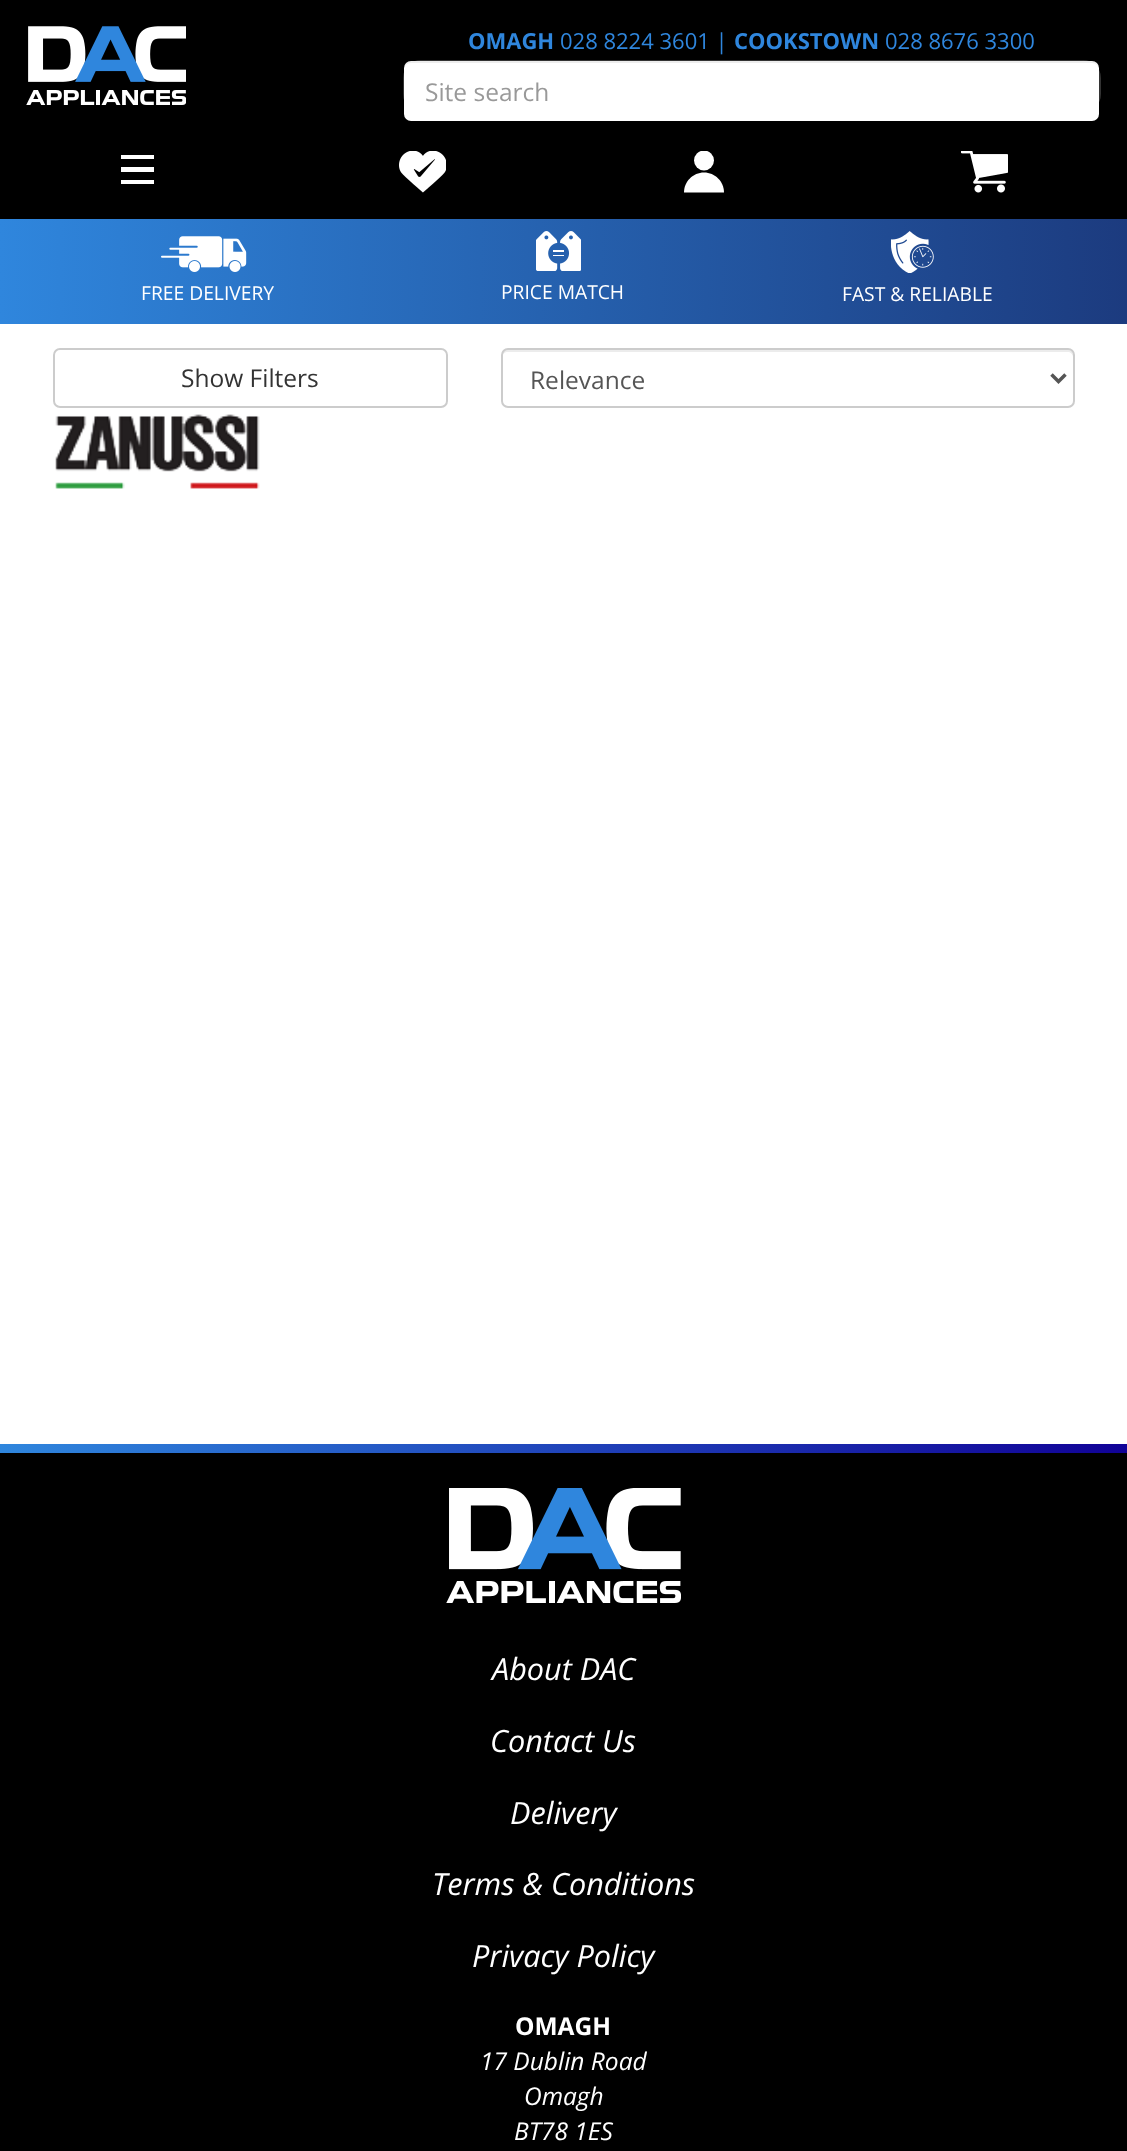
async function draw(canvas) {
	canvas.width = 1127;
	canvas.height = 2151;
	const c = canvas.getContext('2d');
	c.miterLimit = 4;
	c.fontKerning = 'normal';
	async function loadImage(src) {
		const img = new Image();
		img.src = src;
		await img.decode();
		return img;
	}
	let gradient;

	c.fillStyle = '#fff';
	c.fillRect(0, 0, 1127, 2151);
	for (const [x, y, w, h, color] of [
		[0, 0, 1127, 219, '#000'],
		[121, 155, 33, 4, '#fff'],
		[121, 167, 33, 5, '#fff'],
		[121, 180, 33, 4, '#fff'],
	]) {
		c.fillStyle = color;
		c.fillRect(x, y, w, h);
	}
	c.drawImage(await loadImage('img1.png'), 399, 151, 47, 42);
	c.beginPath();
	c.moveTo(704, 172.5);
	c.bezierCurveTo(715, 172.5, 724, 181.5, 724, 192.5);
	c.lineTo(684, 192.5);
	c.bezierCurveTo(684, 181.5, 693, 172.5, 704, 172.5);
	c.closePath();
	c.fill();
	c.save();
	c.beginPath();
	c.rect(684, 151, 41, 42);
	c.clip();
	c.beginPath();
	c.arc(704, 160.5, 10, 0, 2 * Math.PI);
	c.fill();
	c.restore();
	c.drawImage(await loadImage('img2.png'), 961, 151, 47, 42);
	c.drawImage(await loadImage('img3.png'), 26, 26, 160, 79);
	c.font = 'bold 22px Open Sans';
	c.fillStyle = '#2f86dd';
	c.fillText('OMAGH', 468, 49);
	c.font = '22px Open Sans';
	c.fillText('028 8224 3601 |', 560, 49);
	c.font = 'bold 22px Open Sans';
	c.fillText('COOKSTOWN', 734, 49);
	c.font = '22px Open Sans';
	c.fillText('028 8676 3300', 885, 49);
	c.beginPath();
	c.roundRect(404, 61, 696, 50, 17);
	c.strokeStyle = '#333';
	c.lineWidth = 2;
	c.stroke();
	c.fillStyle = '#fff';
	c.beginPath();
	c.roundRect(404, 61, 695, 60, 7);
	c.fill();
	c.fillStyle = '#00000012';
	c.beginPath();
	c.moveTo(411, 63);
	c.lineTo(1092, 63);
	c.bezierCurveTo(1096, 63, 1099, 66, 1099, 70);
	c.bezierCurveTo(1099, 66, 1097, 61, 1092, 61);
	c.lineTo(411, 61);
	c.bezierCurveTo(406, 61, 404, 66, 404, 70);
	c.bezierCurveTo(404, 66, 407, 63, 411, 63);
	c.closePath();
	c.fill();
	c.font = '24.5px Open Sans';
	c.fillStyle = '#999';
	c.fillText('Site search', 425, 101);
	gradient = c.createLinearGradient(0, 271, 1127, 271);
	gradient.addColorStop(0, '#2f86dd');
	gradient.addColorStop(1, '#1c3b7f');
	c.fillStyle = gradient;
	c.fillRect(0, 219, 1127, 105);
	c.drawImage(await loadImage('img4.png'), 161, 236, 86, 36);
	c.font = '19.25px Open Sans';
	c.fillStyle = '#fff';
	c.fillText('FREE DELIVERY', 141, 300);
	c.drawImage(await loadImage('img5.png'), 536, 231, 45, 40);
	c.fillText('PRICE MATCH', 501, 299);
	c.drawImage(await loadImage('img6.png'), 891, 231, 43, 42);
	c.fillText('FAST & RELIABLE', 842, 301);
	c.beginPath();
	c.roundRect(54, 349, 393, 58, 6);
	c.strokeStyle = '#ccc';
	c.stroke();
	c.font = '24.5px Open Sans';
	c.fillStyle = '#333';
	c.fillText('Show Filters', 181, 387);
	c.fillStyle = '#ececec';
	c.beginPath();
	c.moveTo(508, 352);
	c.lineTo(1068, 352);
	c.bezierCurveTo(1070, 352, 1073, 354, 1073, 357);
	c.lineTo(1073, 355);
	c.bezierCurveTo(1073, 352, 1071, 350, 1068, 350);
	c.lineTo(507, 350);
	c.bezierCurveTo(504, 350, 502, 352, 502, 355);
	c.lineTo(502, 357);
	c.bezierCurveTo(502, 354, 505, 352, 508, 352);
	c.closePath();
	c.fill();
	c.beginPath();
	c.roundRect(502, 349, 572, 58, 6);
	c.stroke();
	c.beginPath();
	c.moveTo(1051.5, 374.5);
	c.lineTo(1058.5, 381.5);
	c.lineTo(1065.5, 374.5);
	c.strokeStyle = '#555';
	c.lineWidth = 3.5;
	c.stroke();
	c.fillStyle = '#555';
	c.fillText('Relevance', 530, 389);
	c.drawImage(await loadImage('img7.png'), 55, 414, 205, 75);
	gradient = c.createLinearGradient(0, 1448, 1127, 1448);
	gradient.addColorStop(0, '#2f86dd');
	gradient.addColorStop(1, '#110297');
	c.fillStyle = gradient;
	c.fillRect(0, 1444, 1127, 9);
	c.fillStyle = '#000';
	c.fillRect(0, 1453, 1127, 698);
	c.drawImage(await loadImage('img8.png'), 446, 1488, 235, 115);
	c.font = 'italic 30.6px Open Sans';
	c.fillStyle = '#fff';
	for (const [text, x, y] of [
		['About DAC', 492, 1680],
		['Contact Us', 490, 1752],
		['Delivery', 510, 1824],
		['Terms & Conditions', 432, 1895],
		['Privacy Policy', 472, 1967],
	]) {
		c.fillText(text, x, y);
	}
	c.font = 'bold 24.5px Open Sans';
	c.fillText('OMAGH', 515, 2035);
	c.font = 'italic 24.5px Open Sans';
	for (const [text, x, y] of [
		['17 Dublin Road', 480, 2070],
		['Omagh', 524, 2105],
		['BT78 1ES', 514, 2140],
	]) {
		c.fillText(text, x, y);
	}
}

draw(document.querySelector('canvas'));
